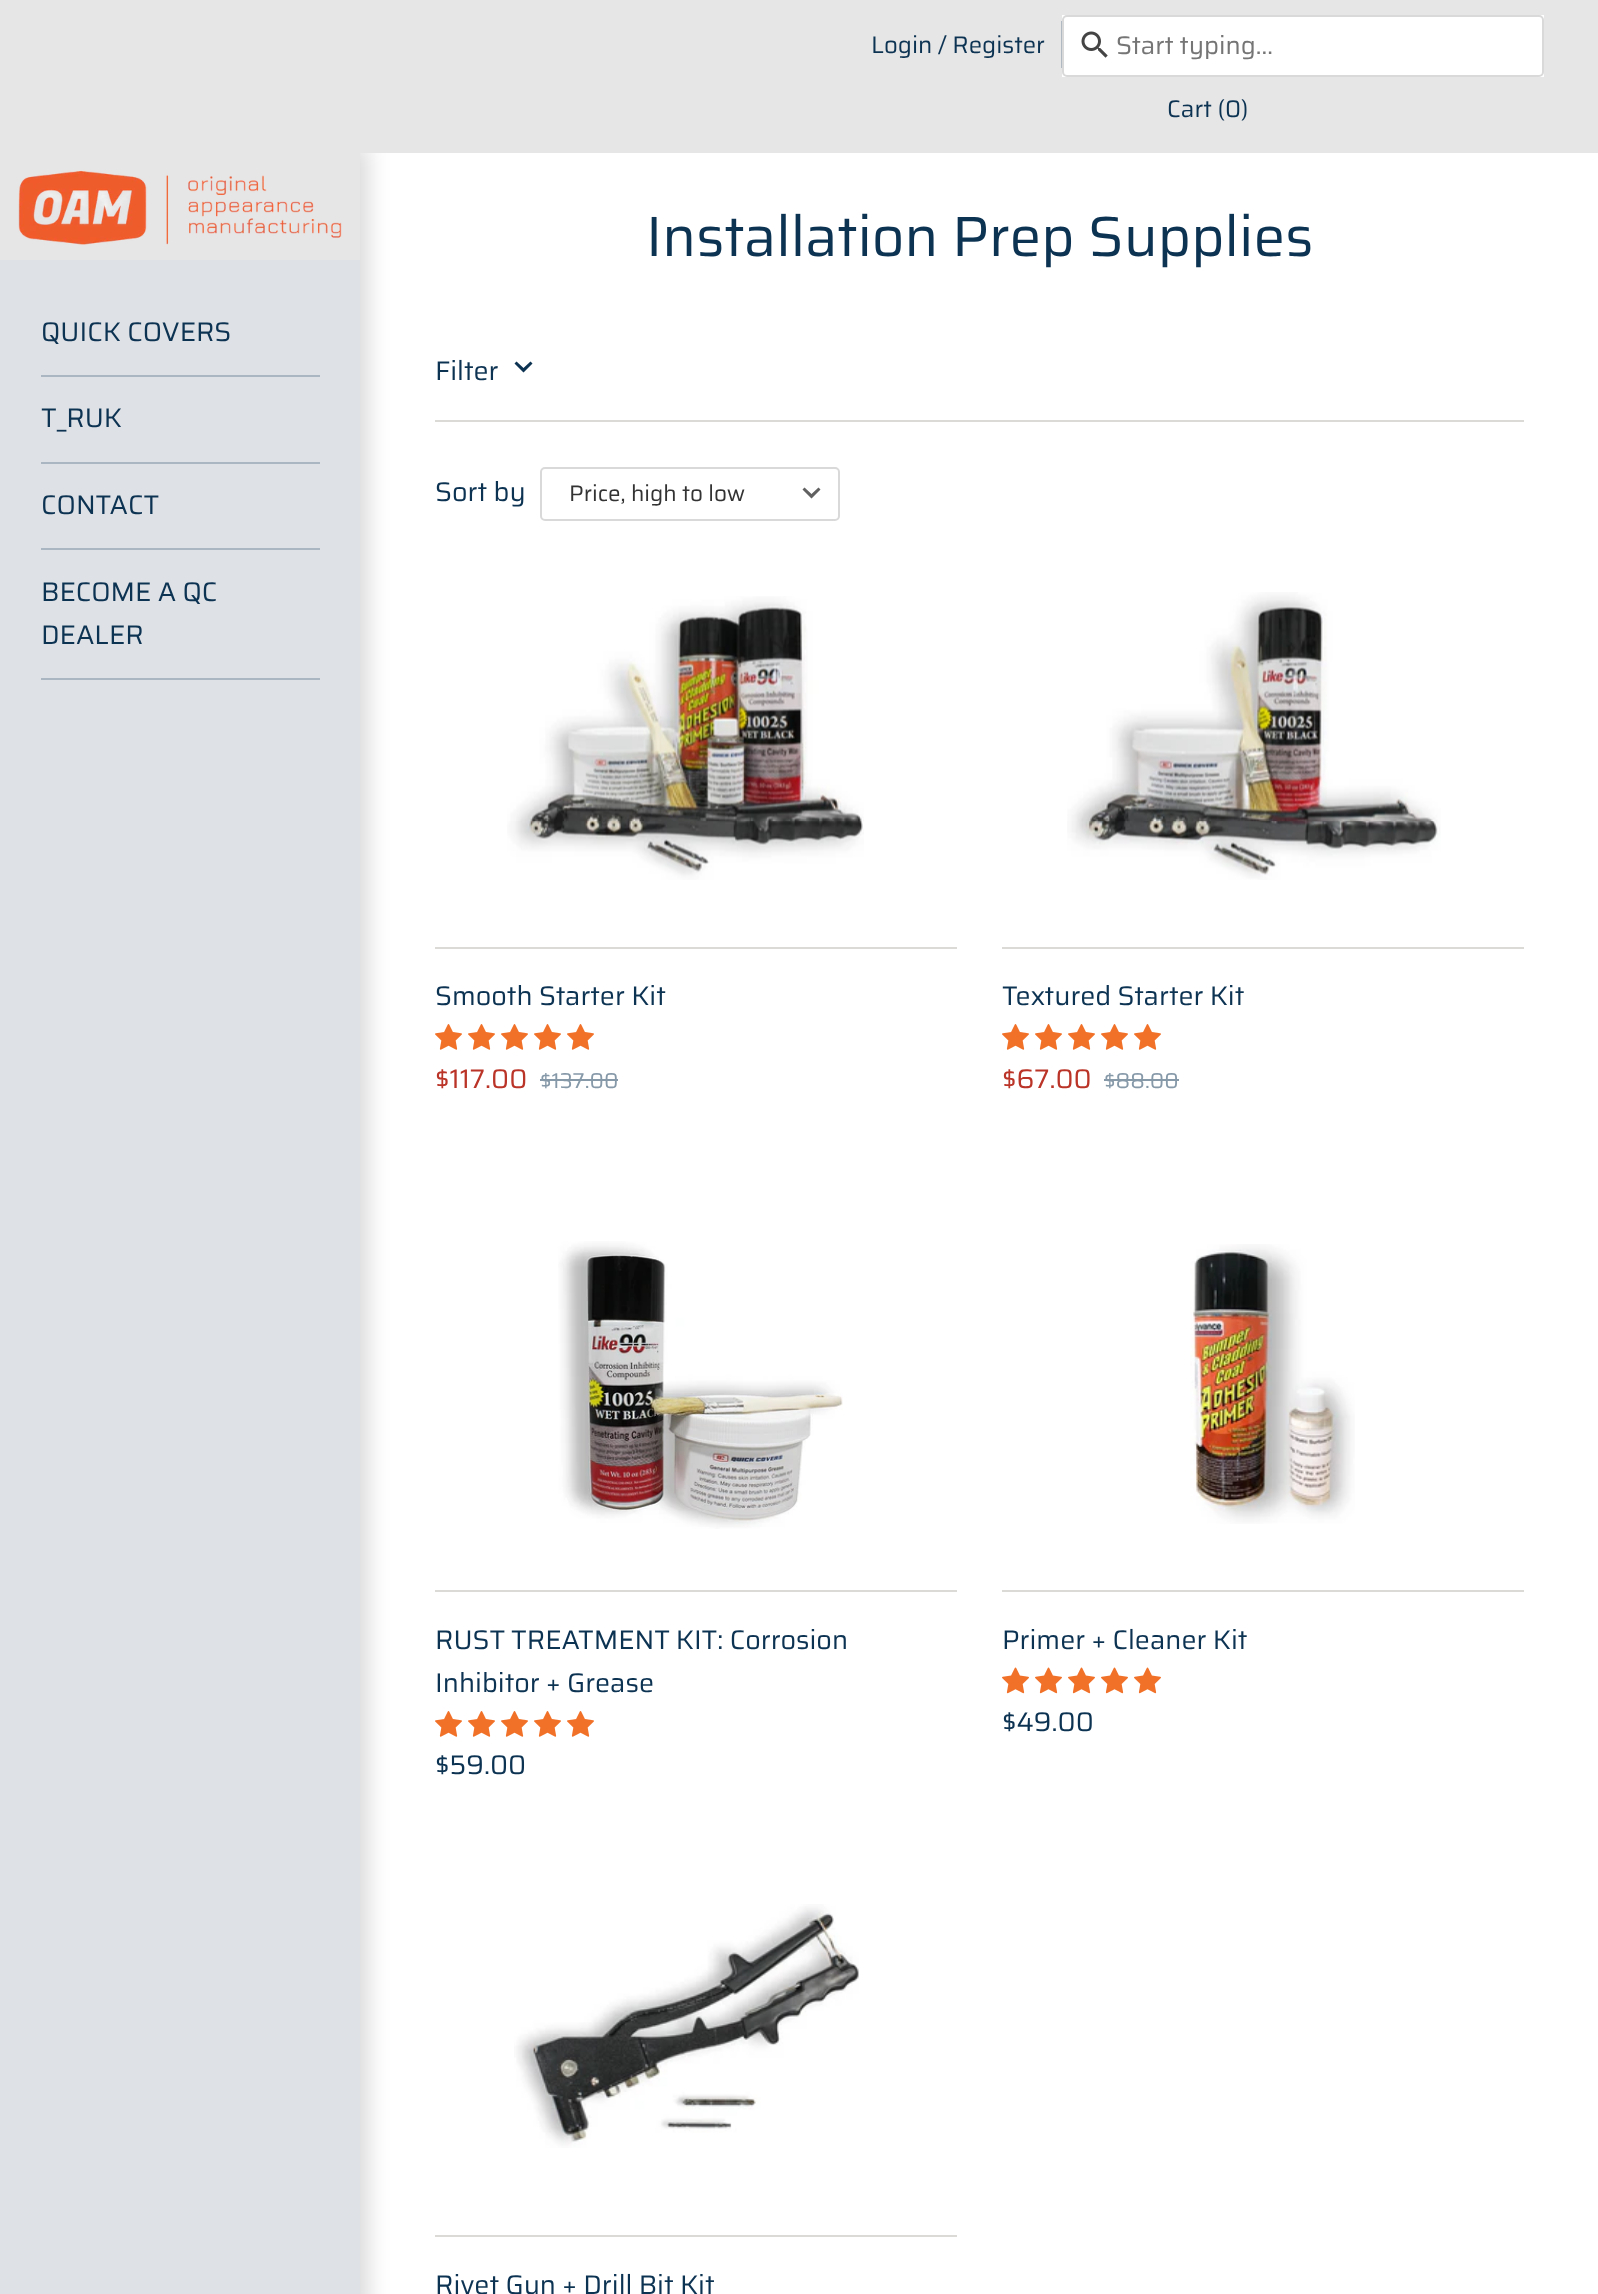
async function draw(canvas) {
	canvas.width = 1598;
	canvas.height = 2294;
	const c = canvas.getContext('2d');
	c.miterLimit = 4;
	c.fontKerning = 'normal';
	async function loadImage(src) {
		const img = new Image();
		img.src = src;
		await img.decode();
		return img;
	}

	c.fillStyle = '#fff';
	c.fillRect(0, 0, 1598, 2294);
	c.fillStyle = '#00000026';
	c.filter = 'blur(11px)';
	c.beginPath();
	c.rect(-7, 146, 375, 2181);
	c.fill();
	c.filter = 'none';
	c.fillStyle = '#e6e6e6';
	c.fillRect(0, 0, 1598, 153);
	c.font = '24px Saira';
	c.fillStyle = '#0d3353';
	c.fillText('Login / Register', 871, 53);
	c.fillStyle = '#b0b9c1';
	c.fillRect(1061, 21, 1, 47);
	c.fillStyle = '#fff';
	c.fillRect(1062, 15, 482, 62);
	c.beginPath();
	c.roundRect(1063, 16, 480, 60, 4);
	c.strokeStyle = '#d9d9d9';
	c.lineWidth = 2;
	c.stroke();
	c.drawImage(await loadImage('img1.png'), 1081, 31, 27, 27);
	c.font = '25.5px Saira';
	c.fillStyle = '#757575';
	c.fillText('Start typing...', 1116, 54);
	c.font = '24px Saira';
	c.fillStyle = '#0d3353';
	c.fillText('Cart (0)', 1167, 117);
	c.fillStyle = '#dee1e5';
	c.fillRect(0, 260, 360, 2034);
	c.fillStyle = '#e6e6e6';
	c.fillRect(0, 153, 360, 107);
	c.drawImage(await loadImage('img2.png'), 18, 170, 324, 75);
	c.fillStyle = '#aab6c1';
	c.fillRect(41, 375, 279, 2);
	c.font = '27px Saira';
	c.fillStyle = '#0d3353';
	c.fillText('QUICK COVERS', 41, 341);
	c.fillStyle = '#aab6c1';
	c.fillRect(41, 462, 279, 2);
	c.fillStyle = '#0d3353';
	c.fillText('T_RUK', 41, 427);
	c.fillStyle = '#aab6c1';
	c.fillRect(41, 548, 279, 2);
	c.fillStyle = '#0d3353';
	c.fillText('CONTACT', 41, 514);
	c.fillStyle = '#aab6c1';
	c.fillRect(41, 678, 279, 2);
	c.fillStyle = '#0d3353';
	c.fillText('BECOME A QC', 41, 601);
	c.fillText('DEALER', 41, 644);
	c.font = '56.75px Saira';
	c.fillText('Installation Prep Supplies', 646, 256);
	c.fillStyle = '#dbdad7';
	c.fillRect(435, 420, 1089, 2);
	c.font = '27px Saira';
	c.fillStyle = '#0d3353';
	c.fillText('Filter', 435, 380);
	c.beginPath();
	c.moveTo(516.5, 361.5);
	c.lineTo(523.5, 368);
	c.lineTo(530.5, 361.5);
	c.lineTo(532.5, 363.5);
	c.lineTo(523.5, 372.5);
	c.lineTo(514.5, 363.5);
	c.closePath();
	c.fill();
	c.fillText('Sort by', 435, 501);
	c.fillStyle = '#616161';
	c.beginPath();
	c.moveTo(804.5, 487.5);
	c.lineTo(811.5, 494);
	c.lineTo(818.5, 487.5);
	c.lineTo(820.5, 489.5);
	c.lineTo(811.5, 498.5);
	c.lineTo(802.5, 489.5);
	c.closePath();
	c.fill();
	c.beginPath();
	c.roundRect(541, 468, 298, 52, 4);
	c.stroke();
	c.font = '22.5px Saira';
	c.fillStyle = '#333';
	c.fillText('Price, high to low', 569, 501);
	c.drawImage(await loadImage('img3.png'), 507, 596, 357, 284);
	c.fillStyle = '#dbdad7';
	c.fillRect(435, 947, 522, 2);
	c.font = '27px Saira';
	c.fillStyle = '#0d3353';
	c.fillText('Smooth Starter Kit', 435, 1005);
	c.drawImage(await loadImage('img4.png'), 435, 1024, 27, 26);
	c.drawImage(await loadImage('img4.png'), 468, 1024, 27, 26);
	c.drawImage(await loadImage('img4.png'), 501, 1024, 27, 26);
	c.drawImage(await loadImage('img4.png'), 534, 1024, 27, 26);
	c.drawImage(await loadImage('img4.png'), 567, 1024, 27, 26);
	c.fillStyle = '#bb3428';
	c.fillText('$117.00', 435, 1088);
	c.font = '21.5px Saira';
	c.fillStyle = '#8699a9';
	c.fillText('$137.00', 540, 1088);
	c.fillRect(540, 1079, 78, 2);
	c.drawImage(await loadImage('img5.png'), 1067, 592, 374, 288);
	c.fillStyle = '#dbdad7';
	c.fillRect(1002, 947, 522, 2);
	c.font = '27px Saira';
	c.fillStyle = '#0d3353';
	c.fillText('Textured Starter Kit', 1002, 1005);
	c.drawImage(await loadImage('img4.png'), 1002, 1024, 27, 26);
	c.drawImage(await loadImage('img4.png'), 1035, 1024, 27, 26);
	c.drawImage(await loadImage('img4.png'), 1068, 1024, 27, 26);
	c.drawImage(await loadImage('img4.png'), 1101, 1024, 27, 26);
	c.drawImage(await loadImage('img4.png'), 1134, 1024, 27, 26);
	c.fillStyle = '#bb3428';
	c.fillText('$67.00', 1002, 1088);
	c.font = '21.5px Saira';
	c.fillStyle = '#8699a9';
	c.fillText('$88.00', 1104, 1088);
	c.fillRect(1104, 1079, 75, 2);
	c.drawImage(await loadImage('img6.png'), 558, 1241, 285, 288);
	c.fillStyle = '#dbdad7';
	c.fillRect(435, 1590, 522, 2);
	c.font = '27px Saira';
	c.fillStyle = '#0d3353';
	c.fillText('RUST TREATMENT KIT: Corrosion', 435, 1649);
	c.fillText('Inhibitor + Grease', 435, 1692);
	c.drawImage(await loadImage('img4.png'), 435, 1711, 27, 26);
	c.drawImage(await loadImage('img4.png'), 468, 1711, 27, 26);
	c.drawImage(await loadImage('img4.png'), 501, 1711, 27, 26);
	c.drawImage(await loadImage('img4.png'), 534, 1711, 27, 26);
	c.drawImage(await loadImage('img4.png'), 567, 1711, 27, 26);
	c.fillText('$59.00', 435, 1774);
	c.drawImage(await loadImage('img7.png'), 1190, 1244, 165, 280);
	c.fillStyle = '#dbdad7';
	c.fillRect(1002, 1590, 522, 2);
	c.fillStyle = '#0d3353';
	c.fillText('Primer + Cleaner Kit', 1002, 1649);
	c.drawImage(await loadImage('img8.png'), 1002, 1667, 27, 27);
	c.drawImage(await loadImage('img8.png'), 1035, 1667, 27, 27);
	c.drawImage(await loadImage('img8.png'), 1068, 1667, 27, 27);
	c.drawImage(await loadImage('img8.png'), 1101, 1667, 27, 27);
	c.drawImage(await loadImage('img8.png'), 1134, 1667, 27, 27);
	c.fillText('$49.00', 1002, 1731);
	c.drawImage(await loadImage('img9.png'), 514, 1904, 345, 244);
	c.fillStyle = '#dbdad7';
	c.fillRect(435, 2235, 522, 2);
	c.fillStyle = '#0d3353';
	c.fillText('Rivet Gun + Drill Bit Kit', 435, 2294);
}

draw(document.querySelector('canvas'));
